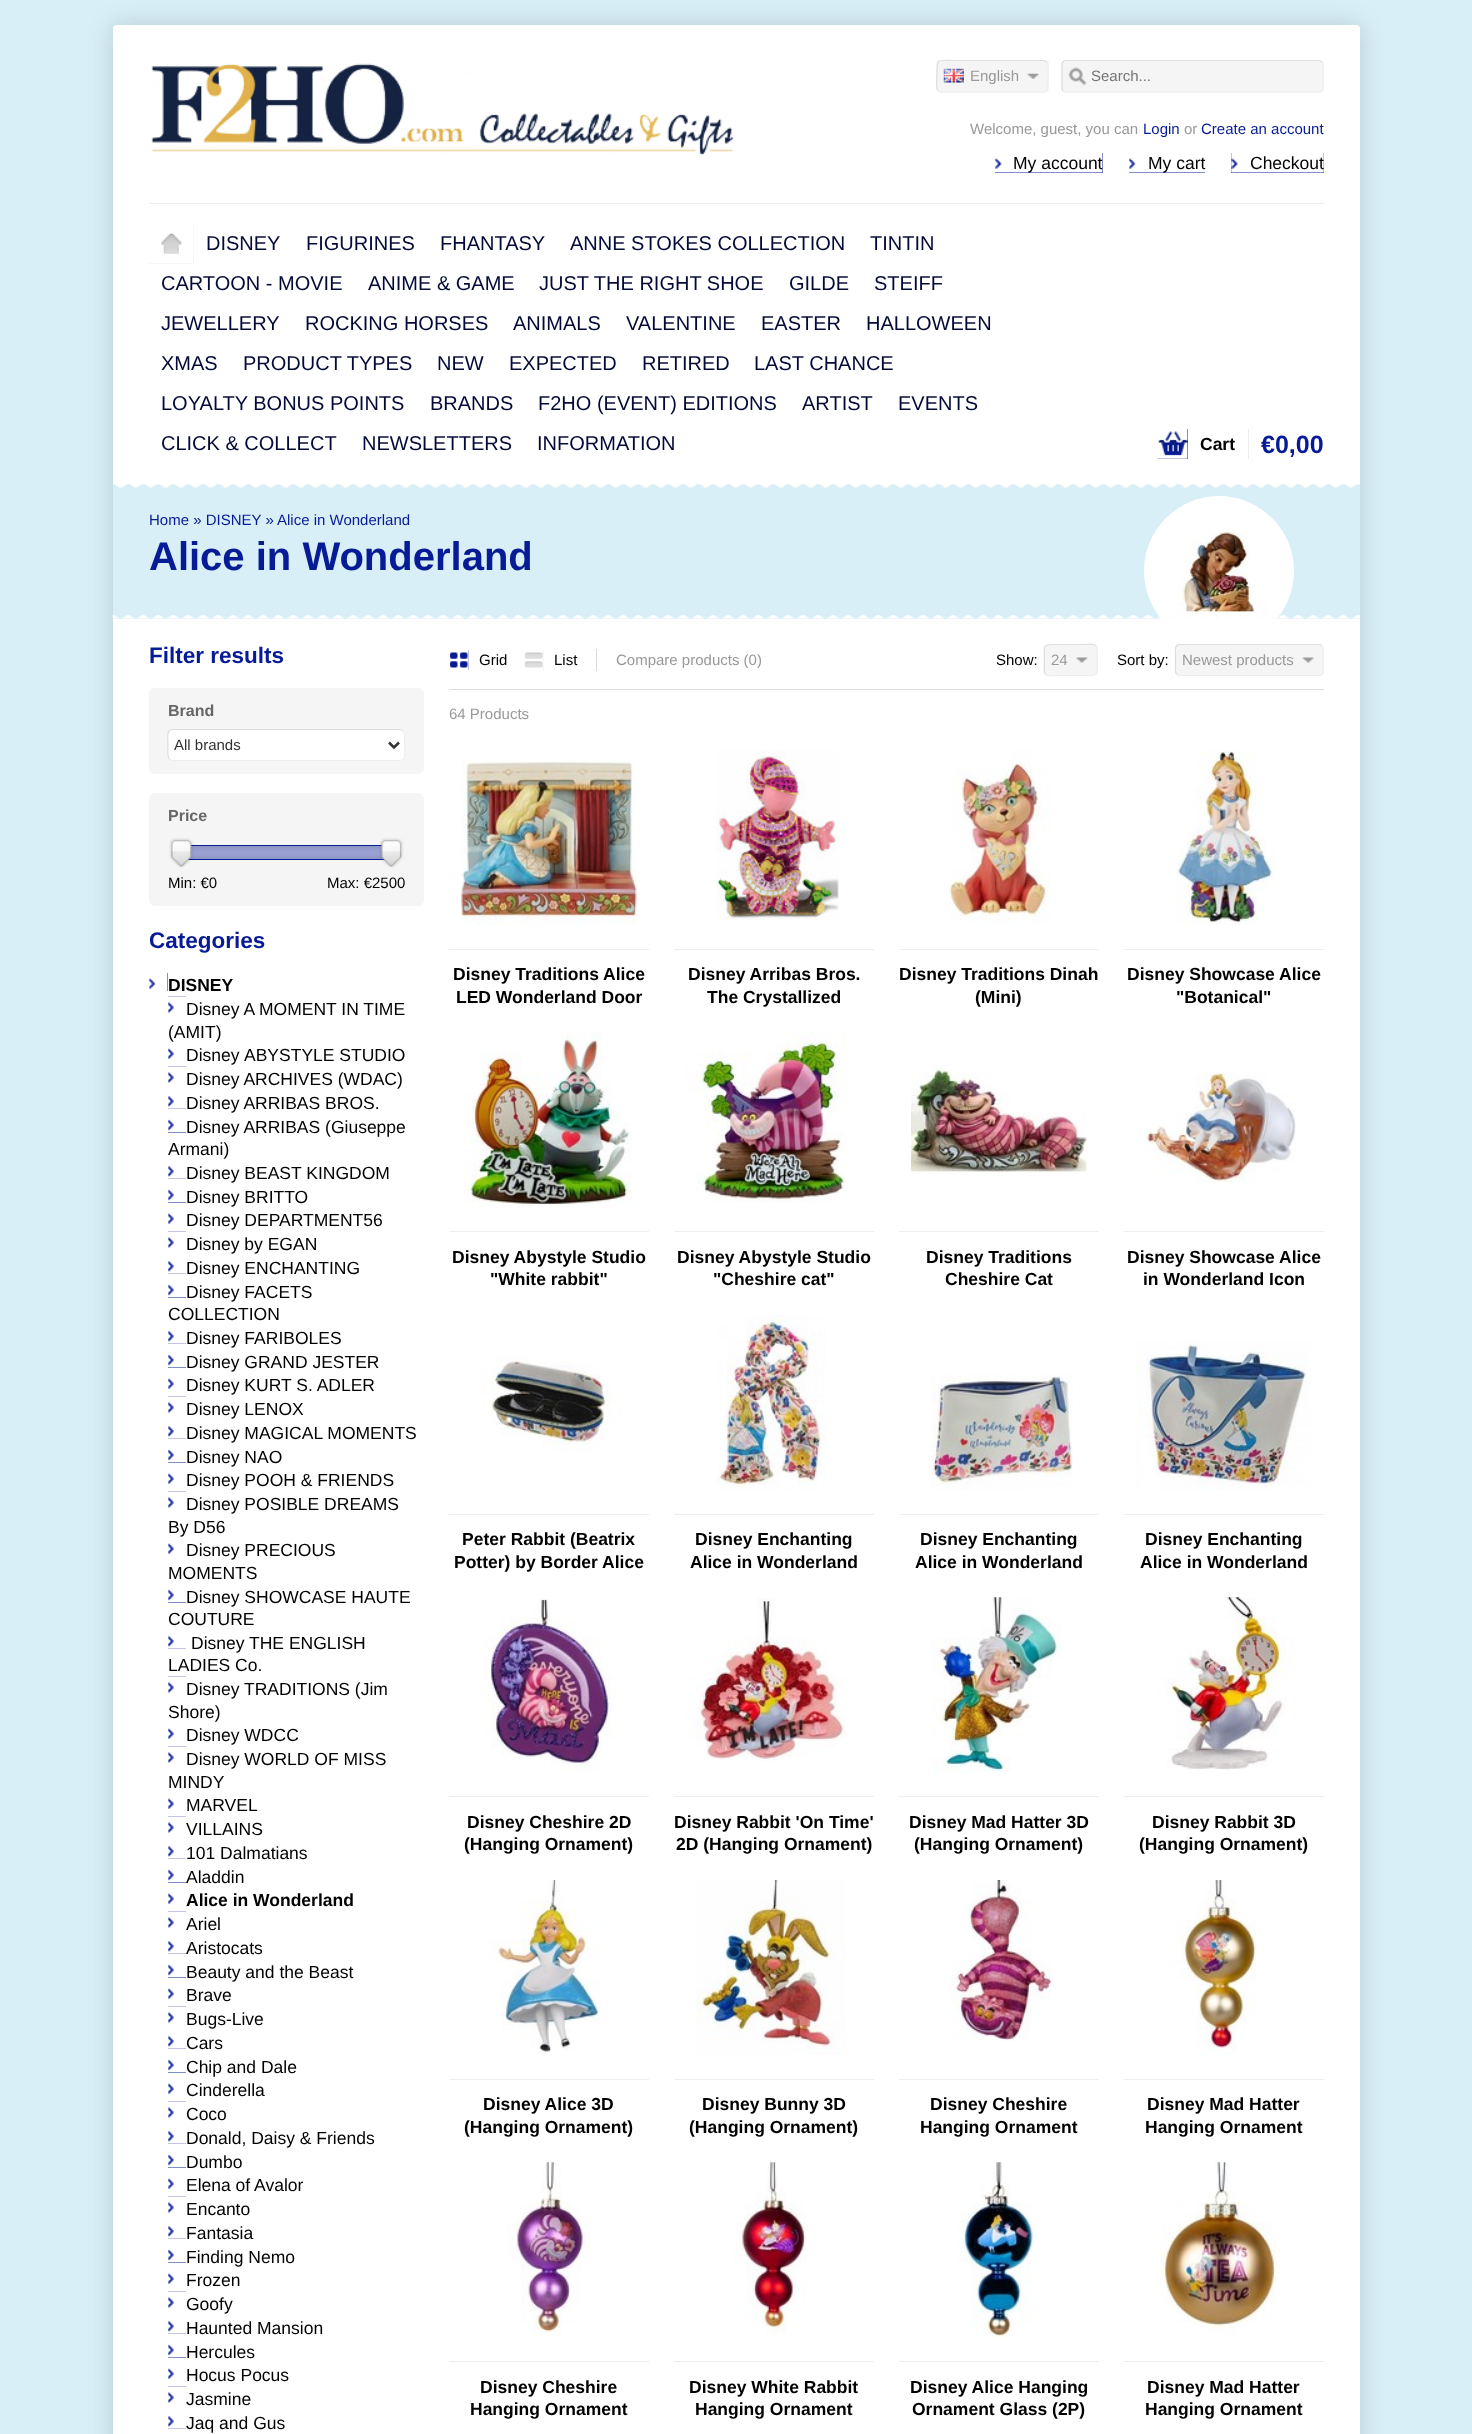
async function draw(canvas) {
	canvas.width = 1472;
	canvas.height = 2434;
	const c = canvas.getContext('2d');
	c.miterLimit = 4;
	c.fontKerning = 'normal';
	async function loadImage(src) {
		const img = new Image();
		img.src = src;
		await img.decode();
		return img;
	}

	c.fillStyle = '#d8eff7';
	c.fillRect(0, 0, 1472, 2434);
	c.fillStyle = '#00000026';
	c.filter = 'blur(12.5px)';
	c.beginPath();
	c.roundRect(113, 25, 1247, 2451, 4);
	c.fill();
	c.filter = 'none';
	c.fillStyle = '#fff';
	c.beginPath();
	c.roundRect(113, 25, 1247, 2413, 4);
	c.fill();
	c.drawImage(await loadImage('img1.png'), 151, 63, 583, 93);
	c.fillStyle = '#f5f5f5';
	c.beginPath();
	c.roundRect(936, 60, 113, 33, 5);
	c.fill();
	c.drawImage(await loadImage('img2.png'), 1027, 73, 12, 6);
	c.beginPath();
	c.moveTo(1047, 62);
	c.bezierCurveTo(1049.5, 64.5, 1048, 73, 1048, 76);
	c.bezierCurveTo(1048, 96, 1049, 92, 1026.5, 92);
	c.lineTo(941, 92);
	c.lineTo(938, 90.5);
	c.strokeStyle = '#eee';
	c.lineWidth = 1.2;
	c.stroke();
	c.beginPath();
	c.moveTo(938, 90.5);
	c.bezierCurveTo(935.5, 88, 937, 79.5, 937, 76);
	c.bezierCurveTo(937, 56.5, 936, 60.5, 958.5, 60.5);
	c.lineTo(1044, 60.5);
	c.lineTo(1047, 62);
	c.strokeStyle = '#ddd';
	c.stroke();
	c.drawImage(await loadImage('img3.png'), 943, 68, 21, 15);
	c.font = '15px Liberation Sans';
	c.fillStyle = '#999';
	c.fillText('English', 970, 81);
	c.fillStyle = '#f5f5f5';
	c.beginPath();
	c.roundRect(1061, 60, 263, 33, 5);
	c.fill();
	c.drawImage(await loadImage('img4.png'), 1068, 67, 19, 19);
	c.beginPath();
	c.moveTo(1322, 62);
	c.bezierCurveTo(1322.5, 62.5, 1323, 64, 1323, 65);
	c.lineTo(1323, 87.5);
	c.bezierCurveTo(1323, 88.5, 1322.5, 90, 1322, 90.5);
	c.bezierCurveTo(1321, 91.5, 1320, 92, 1319, 92);
	c.lineTo(1066, 92);
	c.bezierCurveTo(1065, 92, 1064, 91.5, 1063, 90.5);
	c.strokeStyle = '#eee';
	c.stroke();
	c.beginPath();
	c.moveTo(1063, 90.5);
	c.bezierCurveTo(1062.5, 90, 1062, 88.5, 1062, 87.5);
	c.lineTo(1062, 65);
	c.bezierCurveTo(1062, 64, 1062.5, 62.5, 1063, 62);
	c.bezierCurveTo(1064, 61, 1065, 60.5, 1066, 60.5);
	c.lineTo(1319, 60.5);
	c.bezierCurveTo(1320, 60.5, 1321, 61, 1322, 62);
	c.strokeStyle = '#ddd';
	c.stroke();
	c.fillStyle = '#757575';
	c.fillText('Search...', 1091, 81);
	c.fillStyle = '#999';
	c.fillText('Welcome, guest, you can', 970, 134);
	c.fillStyle = '#081b96';
	c.fillText('Login', 1143, 134);
	c.fillStyle = '#999';
	c.fillText('or', 1184, 134);
	c.fillStyle = '#081b96';
	c.fillText('Create an account', 1201, 134);
	c.fillRect(995, 153, 108, 20);
	c.drawImage(await loadImage('img5.png'), 995, 153, 108, 20);
	c.fillRect(1129, 158, 76, 15);
	c.drawImage(await loadImage('img6.png'), 1129, 153, 76, 20);
	c.fillRect(1231, 153, 93, 20);
	c.drawImage(await loadImage('img7.png'), 1231, 153, 93, 20);
	c.font = '17.5px Liberation Sans';
	c.fillStyle = '#000';
	for (const [text, x, y] of [
		['My account', 1013, 169],
		['My cart', 1148, 169],
		['Checkout', 1250, 169],
	]) {
		c.fillText(text, x, y);
	}
	c.fillStyle = '#eee';
	c.fillRect(149, 203, 1175, 1);
	c.fillStyle = '#ddd';
	c.fillRect(149, 224, 45, 40);
	c.drawImage(await loadImage('img8.png'), 149, 224, 45, 40);
	c.font = '20px Liberation Sans';
	c.fillStyle = '#030a38';
	for (const [text, x, y] of [
		['DISNEY', 206, 250],
		['FIGURINES', 306, 250],
		['FHANTASY', 440, 250],
		['ANNE STOKES COLLECTION', 570, 250],
		['TINTIN', 870, 250],
		['CARTOON - MOVIE', 161, 290],
		['ANIME & GAME', 368, 290],
		['JUST THE RIGHT SHOE', 539, 290],
		['GILDE', 789, 290],
		['STEIFF', 874, 290],
		['JEWELLERY', 161, 330],
		['ROCKING HORSES', 305, 330],
		['ANIMALS', 513, 330],
		['VALENTINE', 626, 330],
		['EASTER', 761, 330],
		['HALLOWEEN', 866, 330],
		['XMAS', 161, 370],
		['PRODUCT TYPES', 243, 370],
		['NEW', 437, 370],
		['EXPECTED', 509, 370],
		['RETIRED', 642, 370],
		['LAST CHANCE', 754, 370],
		['LOYALTY BONUS POINTS', 161, 410],
		['BRANDS', 430, 410],
		['F2HO (EVENT) EDITIONS', 538, 410],
		['ARTIST', 802, 410],
		['EVENTS', 898, 410],
		['CLICK & COLLECT', 161, 450],
		['NEWSLETTERS', 362, 450],
		['INFORMATION', 537, 450],
	]) {
		c.fillText(text, x, y);
	}
	c.fillStyle = '#081b96';
	c.fillRect(1158, 429, 30, 30);
	c.drawImage(await loadImage('img9.png'), 1158, 429, 30, 30);
	c.fillStyle = '#eee';
	c.fillRect(1248, 429, 1, 30);
	c.font = 'bold 17.5px Liberation Sans';
	c.fillStyle = '#000';
	c.fillText('Cart', 1200, 450);
	c.font = 'bold 25px Liberation Sans';
	c.fillStyle = '#081b96';
	c.fillText('€0,00', 1261, 453);
	c.fillStyle = '#d8eff7';
	c.fillRect(113, 484, 1247, 135);
	c.drawImage(await loadImage('img10.png'), 112, 484, 1248, 4);
	c.font = '15px Liberation Sans';
	c.fillStyle = '#081b96';
	c.fillText('Home » DISNEY »', 149, 525);
	c.fillText('Alice in Wonderland', 277, 525);
	c.save();
	c.beginPath();
	c.rect(113, 484, 1247, 135);
	c.clip();
	c.fillStyle = '#fff';
	c.beginPath();
	c.arc(1219, 571, 75, 0, 2 * Math.PI);
	c.fill();
	c.restore();
	c.drawImage(await loadImage('img11.png'), 1177, 529, 92, 89);
	c.font = 'bold 40px Liberation Sans';
	c.fillText('Alice in Wonderland', 149, 570);
	c.drawImage(await loadImage('img12.png'), 112, 615, 1248, 4);
	c.font = 'bold 22.5px Liberation Sans';
	c.fillText('Filter results', 149, 663);
	c.fillStyle = '#f5f5f5';
	c.beginPath();
	c.roundRect(149, 688, 275, 86, 6);
	c.fill();
	c.font = 'bold 16px Liberation Sans';
	c.fillStyle = '#666';
	c.fillText('Brand', 168, 716);
	c.fillStyle = '#fff';
	c.beginPath();
	c.roundRect(168, 729, 237, 32, 5);
	c.fill();
	c.beginPath();
	c.moveTo(403, 730.5);
	c.bezierCurveTo(405.5, 733, 404.5, 742, 404.5, 745);
	c.bezierCurveTo(404.5, 748, 406, 757, 403, 759.5);
	c.lineTo(400.5, 760.5);
	c.lineTo(172.5, 760.5);
	c.lineTo(169.5, 759.5);
	c.strokeStyle = '#eee';
	c.stroke();
	c.beginPath();
	c.moveTo(169.5, 759.5);
	c.bezierCurveTo(167, 757, 168, 748, 168, 745);
	c.bezierCurveTo(168, 742, 166.5, 733, 169.5, 730.5);
	c.lineTo(172, 729.5);
	c.lineTo(400, 729.5);
	c.lineTo(403, 730.5);
	c.strokeStyle = '#ddd';
	c.stroke();
	c.beginPath();
	c.moveTo(389, 742.5);
	c.lineTo(394, 747.5);
	c.lineTo(399, 742.5);
	c.strokeStyle = '#333';
	c.lineWidth = 2.5;
	c.stroke();
	c.font = '15px Liberation Sans';
	c.fillStyle = '#333';
	c.fillText('All brands', 174, 750);
	c.fillStyle = '#f5f5f5';
	c.beginPath();
	c.roundRect(149, 793, 275, 113, 6);
	c.fill();
	c.font = 'bold 16px Liberation Sans';
	c.fillStyle = '#666';
	c.fillText('Price', 168, 821);
	c.fillStyle = '#9ca3d5';
	c.fillRect(187, 846, 198, 13);
	c.drawImage(await loadImage('img15.png'), 187, 846, 198, 13);
	c.strokeStyle = '#081b96';
	c.lineWidth = 1;
	c.strokeRect(180.5, 845.5, 212, 14);
	c.drawImage(await loadImage('img13.png'), 169, 838, 25, 30);
	c.drawImage(await loadImage('img14.png'), 379, 838, 25, 30);
	c.font = '15px Liberation Sans';
	c.fillStyle = '#000';
	c.fillText('Min: €0', 168, 888);
	c.fillText('Max: €2500', 327, 888);
	c.font = 'bold 22.5px Liberation Sans';
	c.fillStyle = '#081b96';
	c.fillText('Categories', 149, 948);
	c.fillRect(149, 973, 19, 18);
	c.drawImage(await loadImage('img16.png'), 149, 973, 19, 18);
	c.font = 'bold 17.5px Liberation Sans';
	c.fillStyle = '#000';
	c.fillText('DISNEY', 168, 991);
	c.fillStyle = '#081b96';
	c.fillRect(168, 996, 18, 17);
	c.drawImage(await loadImage('img17.png'), 168, 996, 18, 19);
	c.font = '17.5px Liberation Sans';
	c.fillStyle = '#000';
	c.fillText('Disney A MOMENT IN TIME', 186, 1015);
	c.fillText('(AMIT)', 168, 1038);
	c.fillStyle = '#081b96';
	c.fillRect(168, 1048, 6, 11);
	c.drawImage(await loadImage('img18.png'), 168, 1043, 18, 18);
	c.fillStyle = '#000';
	c.fillText('Disney', 186, 1061);
	c.fillText('ABYSTYLE STUDIO', 244, 1061);
	c.fillStyle = '#081b96';
	c.fillRect(168, 1066, 18, 17);
	c.drawImage(await loadImage('img17.png'), 168, 1066, 18, 19);
	c.fillStyle = '#000';
	c.fillText('Disney ARCHIVES (WDAC)', 186, 1085);
	c.fillStyle = '#081b96';
	c.fillRect(168, 1096, 18, 13);
	c.drawImage(await loadImage('img19.png'), 168, 1090, 18, 19);
	c.fillStyle = '#000';
	c.fillText('Disney ARRIBAS BROS.', 186, 1109);
	c.fillStyle = '#081b96';
	c.fillRect(168, 1119, 18, 14);
	c.drawImage(await loadImage('img20.png'), 168, 1114, 18, 19);
	c.fillStyle = '#000';
	c.fillText('Disney ARRIBAS (Giuseppe', 186, 1133);
	c.fillText('Armani)', 168, 1155);
	c.fillStyle = '#081b96';
	c.fillRect(168, 1166, 18, 13);
	c.drawImage(await loadImage('img19.png'), 168, 1160, 18, 19);
	c.fillStyle = '#000';
	c.fillText('Disney BEAST KINGDOM', 186, 1179);
	c.fillStyle = '#081b96';
	c.fillRect(168, 1189, 18, 14);
	c.drawImage(await loadImage('img20.png'), 168, 1184, 18, 19);
	c.fillStyle = '#000';
	c.fillText('Disney BRITTO', 186, 1203);
	c.fillStyle = '#081b96';
	c.fillRect(168, 1213, 6, 11);
	c.drawImage(await loadImage('img18.png'), 168, 1208, 18, 18);
	c.fillStyle = '#000';
	c.fillText('Disney DEPARTMENT56', 186, 1226);
	c.fillStyle = '#081b96';
	c.fillRect(168, 1231, 18, 17);
	c.drawImage(await loadImage('img17.png'), 168, 1231, 18, 19);
	c.fillStyle = '#000';
	c.fillText('Disney by EGAN', 186, 1250);
	c.fillStyle = '#081b96';
	c.fillRect(168, 1261, 18, 13);
	c.drawImage(await loadImage('img19.png'), 168, 1255, 18, 19);
	c.fillStyle = '#000';
	c.fillText('Disney ENCHANTING', 186, 1274);
	c.fillStyle = '#081b96';
	c.fillRect(168, 1284, 18, 14);
	c.drawImage(await loadImage('img20.png'), 168, 1279, 18, 19);
	c.fillStyle = '#000';
	c.fillText('Disney FACETS', 186, 1298);
	c.fillText('COLLECTION', 168, 1320);
	c.fillStyle = '#081b96';
	c.fillRect(168, 1331, 18, 13);
	c.drawImage(await loadImage('img19.png'), 168, 1325, 18, 19);
	c.fillStyle = '#000';
	c.fillText('Disney FARIBOLES', 186, 1344);
	c.fillStyle = '#081b96';
	c.fillRect(168, 1354, 18, 14);
	c.drawImage(await loadImage('img20.png'), 168, 1349, 18, 19);
	c.fillStyle = '#000';
	c.fillText('Disney GRAND JESTER', 186, 1368);
	c.fillStyle = '#081b96';
	c.fillRect(168, 1378, 6, 11);
	c.drawImage(await loadImage('img18.png'), 168, 1373, 18, 18);
	c.fillStyle = '#000';
	c.fillText('Disney KURT S. ADLER', 186, 1391);
	c.fillStyle = '#081b96';
	c.fillRect(168, 1396, 18, 17);
	c.drawImage(await loadImage('img17.png'), 168, 1396, 18, 19);
	c.fillStyle = '#000';
	c.fillText('Disney LENOX', 186, 1415);
	c.fillStyle = '#081b96';
	c.fillRect(168, 1426, 18, 13);
	c.drawImage(await loadImage('img19.png'), 168, 1420, 18, 19);
	c.fillStyle = '#000';
	c.fillText('Disney MAGICAL MOMENTS', 186, 1439);
	c.fillStyle = '#081b96';
	c.fillRect(168, 1449, 18, 14);
	c.drawImage(await loadImage('img20.png'), 168, 1444, 18, 19);
	c.fillStyle = '#000';
	c.fillText('Disney NAO', 186, 1463);
	c.fillStyle = '#081b96';
	c.fillRect(168, 1473, 6, 11);
	c.drawImage(await loadImage('img18.png'), 168, 1468, 18, 18);
	c.fillStyle = '#000';
	c.fillText('Disney POOH & FRIENDS', 186, 1486);
	c.fillStyle = '#081b96';
	c.fillRect(168, 1491, 18, 17);
	c.drawImage(await loadImage('img17.png'), 168, 1491, 18, 19);
	c.fillStyle = '#000';
	c.fillText('Disney POSIBLE DREAMS', 186, 1510);
	c.fillText('By D56', 168, 1533);
	c.fillStyle = '#081b96';
	c.fillRect(168, 1543, 6, 11);
	c.drawImage(await loadImage('img18.png'), 168, 1538, 18, 18);
	c.fillStyle = '#000';
	c.fillText('Disney PRECIOUS', 186, 1556);
	c.fillText('MOMENTS', 168, 1579);
	c.fillStyle = '#081b96';
	c.fillRect(168, 1589, 18, 14);
	c.drawImage(await loadImage('img20.png'), 168, 1584, 18, 19);
	c.fillStyle = '#000';
	c.fillText('Disney SHOWCASE HAUTE', 186, 1603);
	c.fillText('COUTURE', 168, 1625);
	c.fillStyle = '#081b96';
	c.fillRect(168, 1636, 18, 13);
	c.drawImage(await loadImage('img19.png'), 168, 1630, 18, 19);
	c.fillStyle = '#000';
	c.fillText('Disney THE ENGLISH', 191, 1649);
	c.fillText('LADIES Co.', 168, 1671);
	c.fillStyle = '#081b96';
	c.fillRect(168, 1676, 18, 17);
	c.drawImage(await loadImage('img17.png'), 168, 1676, 18, 19);
	c.fillStyle = '#000';
	c.fillText('Disney TRADITIONS (Jim', 186, 1695);
	c.fillText('Shore)', 168, 1718);
	c.fillStyle = '#081b96';
	c.fillRect(168, 1728, 6, 11);
	c.drawImage(await loadImage('img18.png'), 168, 1723, 18, 18);
	c.fillStyle = '#000';
	c.fillText('Disney WDCC', 186, 1741);
	c.fillStyle = '#081b96';
	c.fillRect(168, 1746, 18, 17);
	c.drawImage(await loadImage('img17.png'), 168, 1746, 18, 19);
	c.fillStyle = '#000';
	c.fillText('Disney WORLD OF MISS', 186, 1765);
	c.fillText('MINDY', 168, 1788);
	c.fillStyle = '#081b96';
	c.fillRect(168, 1798, 6, 11);
	c.drawImage(await loadImage('img18.png'), 168, 1793, 18, 18);
	c.fillStyle = '#000';
	c.fillText('MARVEL', 186, 1811);
	c.fillStyle = '#081b96';
	c.fillRect(168, 1816, 18, 17);
	c.drawImage(await loadImage('img17.png'), 168, 1816, 18, 19);
	c.fillStyle = '#000';
	c.fillText('VILLAINS', 186, 1835);
	c.fillStyle = '#081b96';
	c.fillRect(168, 1846, 18, 13);
	c.drawImage(await loadImage('img19.png'), 168, 1840, 18, 19);
	c.fillStyle = '#000';
	c.fillText('101 Dalmatians', 186, 1859);
	c.fillStyle = '#081b96';
	c.fillRect(168, 1869, 18, 14);
	c.drawImage(await loadImage('img20.png'), 168, 1864, 18, 19);
	c.fillStyle = '#000';
	c.fillText('Aladdin', 186, 1883);
	c.fillStyle = '#081b96';
	c.fillRect(168, 1893, 6, 11);
	c.drawImage(await loadImage('img18.png'), 168, 1888, 18, 18);
	c.font = 'bold 17.5px Liberation Sans';
	c.fillStyle = '#000';
	c.fillText('Alice in Wonderland', 186, 1906);
	c.fillStyle = '#081b96';
	c.fillRect(168, 1911, 18, 17);
	c.drawImage(await loadImage('img17.png'), 168, 1911, 18, 19);
	c.font = '17.5px Liberation Sans';
	c.fillStyle = '#000';
	c.fillText('Ariel', 186, 1930);
	c.fillStyle = '#081b96';
	c.fillRect(168, 1941, 18, 13);
	c.drawImage(await loadImage('img19.png'), 168, 1935, 18, 19);
	c.fillStyle = '#000';
	c.fillText('Aristocats', 186, 1954);
	c.fillStyle = '#081b96';
	c.fillRect(168, 1964, 18, 14);
	c.drawImage(await loadImage('img20.png'), 168, 1959, 18, 19);
	c.fillStyle = '#000';
	c.fillText('Beauty and the Beast', 186, 1978);
	c.fillStyle = '#081b96';
	c.fillRect(168, 1988, 6, 11);
	c.drawImage(await loadImage('img18.png'), 168, 1983, 18, 18);
	c.fillStyle = '#000';
	c.fillText('Brave', 186, 2001);
	c.fillStyle = '#081b96';
	c.fillRect(168, 2006, 18, 17);
	c.drawImage(await loadImage('img17.png'), 168, 2006, 18, 19);
	c.fillStyle = '#000';
	c.fillText('Bugs-Live', 186, 2025);
	c.fillStyle = '#081b96';
	c.fillRect(168, 2036, 18, 13);
	c.drawImage(await loadImage('img19.png'), 168, 2030, 18, 19);
	c.fillStyle = '#000';
	c.fillText('Cars', 186, 2049);
	c.fillStyle = '#081b96';
	c.fillRect(168, 2059, 18, 14);
	c.drawImage(await loadImage('img20.png'), 168, 2054, 18, 19);
	c.fillStyle = '#000';
	c.fillText('Chip and Dale', 186, 2073);
	c.fillStyle = '#081b96';
	c.fillRect(168, 2083, 6, 11);
	c.drawImage(await loadImage('img18.png'), 168, 2078, 18, 18);
	c.fillStyle = '#000';
	c.fillText('Cinderella', 186, 2096);
	c.fillStyle = '#081b96';
	c.fillRect(168, 2101, 18, 17);
	c.drawImage(await loadImage('img17.png'), 168, 2101, 18, 19);
	c.fillStyle = '#000';
	c.fillText('Coco', 186, 2120);
	c.fillStyle = '#081b96';
	c.fillRect(168, 2131, 18, 13);
	c.drawImage(await loadImage('img19.png'), 168, 2125, 18, 19);
	c.fillStyle = '#000';
	c.fillText('Donald, Daisy & Friends', 186, 2144);
	c.fillStyle = '#081b96';
	c.fillRect(168, 2154, 18, 14);
	c.drawImage(await loadImage('img20.png'), 168, 2149, 18, 19);
	c.fillStyle = '#000';
	c.fillText('Dumbo', 186, 2168);
	c.fillStyle = '#081b96';
	c.fillRect(168, 2178, 6, 11);
	c.drawImage(await loadImage('img18.png'), 168, 2173, 18, 18);
	c.fillStyle = '#000';
	c.fillText('Elena of Avalor', 186, 2191);
	c.fillStyle = '#081b96';
	c.fillRect(168, 2196, 18, 17);
	c.drawImage(await loadImage('img17.png'), 168, 2196, 18, 19);
	c.fillStyle = '#000';
	c.fillText('Encanto', 186, 2215);
	c.fillStyle = '#081b96';
	c.fillRect(168, 2226, 18, 13);
	c.drawImage(await loadImage('img19.png'), 168, 2220, 18, 19);
	c.fillStyle = '#000';
	c.fillText('Fantasia', 186, 2239);
	c.fillStyle = '#081b96';
	c.fillRect(168, 2249, 18, 14);
	c.drawImage(await loadImage('img20.png'), 168, 2244, 18, 19);
	c.fillStyle = '#000';
	c.fillText('Finding Nemo', 186, 2263);
	c.fillStyle = '#081b96';
	c.fillRect(168, 2273, 6, 11);
	c.drawImage(await loadImage('img18.png'), 168, 2268, 18, 18);
	c.fillStyle = '#000';
	c.fillText('Frozen', 186, 2286);
	c.fillStyle = '#081b96';
	c.fillRect(168, 2291, 18, 17);
	c.drawImage(await loadImage('img21.png'), 168, 2291, 18, 19);
	c.fillStyle = '#000';
	c.fillText('Goofy', 186, 2310);
	c.fillStyle = '#081b96';
	c.fillRect(168, 2321, 18, 13);
	c.drawImage(await loadImage('img19.png'), 168, 2315, 18, 19);
	c.fillStyle = '#000';
	c.fillText('Haunted Mansion', 186, 2334);
	c.fillStyle = '#081b96';
	c.fillRect(168, 2344, 18, 14);
	c.drawImage(await loadImage('img20.png'), 168, 2339, 18, 19);
	c.fillStyle = '#000';
	c.fillText('Hercules', 186, 2358);
	c.fillStyle = '#081b96';
	c.fillRect(168, 2368, 6, 11);
	c.drawImage(await loadImage('img18.png'), 168, 2363, 18, 18);
	c.fillStyle = '#000';
	c.fillText('Hocus Pocus', 186, 2381);
	c.fillStyle = '#081b96';
	c.fillRect(168, 2386, 18, 17);
	c.drawImage(await loadImage('img17.png'), 168, 2386, 18, 19);
	c.fillStyle = '#000';
	c.fillText('Jasmine', 186, 2405);
	c.fillStyle = '#081b96';
	c.fillRect(168, 2416, 18, 13);
	c.drawImage(await loadImage('img19.png'), 168, 2410, 18, 19);
	c.fillStyle = '#000';
	c.fillText('Jaq and Gus', 186, 2429);
	c.fillStyle = '#ddd';
	c.fillRect(449, 689, 875, 1);
	c.fillStyle = '#081b96';
	c.fillRect(449, 650, 20, 20);
	c.drawImage(await loadImage('img22.png'), 449, 650, 20, 20);
	c.font = '15px Liberation Sans';
	c.fillStyle = '#000';
	c.fillText('Grid', 479, 665);
	c.fillStyle = '#ddd';
	c.fillRect(524, 650, 20, 20);
	c.drawImage(await loadImage('img23.png'), 524, 650, 20, 20);
	c.fillStyle = '#000';
	c.fillText('List', 554, 665);
	c.fillStyle = '#ddd';
	c.fillRect(596, 649, 1, 22);
	c.fillStyle = '#999';
	c.fillText('Compare products (0)', 616, 665);
	c.fillStyle = '#000';
	c.fillText('Show:', 996, 665);
	c.fillStyle = '#f5f5f5';
	c.beginPath();
	c.roundRect(1044, 644, 54, 32, 5);
	c.fill();
	c.drawImage(await loadImage('img24.png'), 1076, 657, 12, 6);
	c.beginPath();
	c.moveTo(1095.5, 645.5);
	c.bezierCurveTo(1098, 648, 1097, 657, 1097, 660);
	c.bezierCurveTo(1097, 674.5, 1099.5, 675.5, 1085, 675.5);
	c.lineTo(1056, 675.5);
	c.bezierCurveTo(1054, 675.5, 1048, 677, 1045.5, 674.5);
	c.strokeStyle = '#eee';
	c.lineWidth = 1.2;
	c.stroke();
	c.beginPath();
	c.moveTo(1045.5, 674.5);
	c.bezierCurveTo(1043, 672, 1044.5, 663, 1044.5, 660);
	c.bezierCurveTo(1044.5, 645.5, 1041.5, 644.5, 1056, 644.5);
	c.lineTo(1085, 644.5);
	c.bezierCurveTo(1087.5, 644.5, 1093, 643, 1095.5, 645.5);
	c.strokeStyle = '#ddd';
	c.stroke();
	c.fillStyle = '#999';
	c.fillText('24', 1051, 665);
	c.fillStyle = '#000';
	c.fillText('Sort by:', 1117, 665);
	c.fillStyle = '#f5f5f5';
	c.beginPath();
	c.roundRect(1175, 644, 149, 32, 5);
	c.fill();
	c.drawImage(await loadImage('img25.png'), 1302, 657, 12, 6);
	c.beginPath();
	c.moveTo(1322, 645.5);
	c.bezierCurveTo(1322.5, 646.5, 1323, 647.5, 1323, 649);
	c.lineTo(1323, 671);
	c.bezierCurveTo(1323, 672.5, 1322.5, 673.5, 1322, 674.5);
	c.bezierCurveTo(1321, 675, 1320, 675.5, 1319, 675.5);
	c.lineTo(1180, 675.5);
	c.bezierCurveTo(1179, 675.5, 1177.5, 675, 1177, 674.5);
	c.strokeStyle = '#eee';
	c.stroke();
	c.beginPath();
	c.moveTo(1177, 674.5);
	c.bezierCurveTo(1176, 673.5, 1175.5, 672.5, 1175.5, 671);
	c.lineTo(1175.5, 649);
	c.bezierCurveTo(1175.5, 647.5, 1176, 646.5, 1177, 645.5);
	c.bezierCurveTo(1177.5, 645, 1179, 644.5, 1180, 644.5);
	c.lineTo(1319, 644.5);
	c.bezierCurveTo(1320, 644.5, 1321, 645, 1322, 645.5);
	c.strokeStyle = '#ddd';
	c.stroke();
	c.fillStyle = '#999';
	c.fillText('Newest products', 1182, 665);
	c.fillText('64 Products', 449, 719);
	c.drawImage(await loadImage('img26.png'), 461, 760, 176, 165);
	c.drawImage(await loadImage('img27.png'), 461, 887, 176, 28);
	c.fillStyle = '#eee';
	c.fillRect(449, 949, 200, 1);
	c.font = 'bold 17.5px Liberation Sans';
	c.fillStyle = '#000';
	c.fillText('Disney Traditions Alice', 453, 980);
	c.fillText('LED Wonderland Door', 456, 1003);
	c.drawImage(await loadImage('img28.png'), 716, 750, 123, 170);
	c.fillStyle = '#eee';
	c.fillRect(674, 949, 200, 1);
	c.fillStyle = '#000';
	c.fillText('Disney Arribas Bros.', 688, 980);
	c.fillText('The Crystallized', 707, 1003);
	c.drawImage(await loadImage('img29.png'), 949, 750, 102, 175);
	c.fillStyle = '#eee';
	c.fillRect(899, 949, 200, 1);
	c.fillStyle = '#000';
	c.fillText('Disney Traditions Dinah', 899, 980);
	c.fillText('(Mini)', 975, 1003);
	c.drawImage(await loadImage('img30.png'), 1176, 750, 100, 175);
	c.fillStyle = '#eee';
	c.fillRect(1124, 949, 200, 1);
	c.fillStyle = '#000';
	c.fillText('Disney Showcase Alice', 1127, 980);
	c.fillText('"Botanical"', 1176, 1003);
	c.drawImage(await loadImage('img31.png'), 594, 1032, 7, 1);
	c.drawImage(await loadImage('img32.png'), 463, 1033, 171, 174);
	c.fillStyle = '#eee';
	c.fillRect(449, 1231, 200, 1);
	c.fillStyle = '#000';
	c.fillText('Disney Abystyle Studio', 452, 1263);
	c.fillText('"White rabbit"', 490, 1285);
	c.drawImage(await loadImage('img33.png'), 686, 1032, 161, 171);
	c.fillStyle = '#eee';
	c.fillRect(674, 1231, 200, 1);
	c.fillStyle = '#000';
	c.fillText('Disney Abystyle Studio', 677, 1263);
	c.fillText('"Cheshire cat"', 713, 1285);
	c.drawImage(await loadImage('img34.png'), 911, 1065, 176, 108);
	c.drawImage(await loadImage('img35.png'), 911, 1109, 176, 62);
	c.fillStyle = '#eee';
	c.fillRect(899, 1231, 200, 1);
	c.fillStyle = '#000';
	c.fillText('Disney Traditions', 926, 1263);
	c.fillText('Cheshire Cat', 945, 1285);
	c.drawImage(await loadImage('img36.png'), 1136, 1072, 160, 111);
	c.fillStyle = '#eee';
	c.fillRect(1124, 1231, 200, 1);
	c.fillStyle = '#000';
	c.fillText('Disney Showcase Alice', 1127, 1263);
	c.fillText('in Wonderland Icon', 1143, 1285);
	c.drawImage(await loadImage('img37.png'), 481, 1355, 140, 98);
	c.fillStyle = '#eee';
	c.fillRect(449, 1514, 200, 1);
	c.fillStyle = '#000';
	c.fillText('Peter Rabbit (Beatrix', 462, 1545);
	c.fillText('Potter) by Border Alice', 454, 1568);
	c.drawImage(await loadImage('img38.png'), 716, 1315, 110, 175);
	c.fillStyle = '#eee';
	c.fillRect(674, 1514, 200, 1);
	c.fillStyle = '#000';
	c.fillText('Disney Enchanting', 695, 1545);
	c.fillText('Alice in Wonderland', 690, 1568);
	c.drawImage(await loadImage('img39.png'), 931, 1375, 142, 115);
	c.fillStyle = '#eee';
	c.fillRect(899, 1514, 200, 1);
	c.fillStyle = '#000';
	c.fillText('Disney Enchanting', 920, 1545);
	c.fillText('Alice in Wonderland', 915, 1568);
	c.drawImage(await loadImage('img40.png'), 1136, 1340, 175, 150);
	c.fillStyle = '#eee';
	c.fillRect(1124, 1514, 200, 1);
	c.fillStyle = '#000';
	c.fillText('Disney Enchanting', 1145, 1545);
	c.fillText('Alice in Wonderland', 1140, 1568);
	c.drawImage(await loadImage('img41.png'), 481, 1599, 136, 173);
	c.fillStyle = '#eee';
	c.fillRect(449, 1796, 200, 1);
	c.fillStyle = '#000';
	c.fillText('Disney Cheshire 2D', 467, 1828);
	c.fillText('(Hanging Ornament)', 464, 1850);
	c.drawImage(await loadImage('img42.png'), 686, 1598, 160, 163);
	c.fillStyle = '#eee';
	c.fillRect(674, 1796, 200, 1);
	c.fillStyle = '#000';
	c.fillText('Disney Rabbit \'On Time\'', 674, 1828);
	c.fillText('2D (Hanging Ornament)', 676, 1850);
	c.drawImage(await loadImage('img43.png'), 931, 1597, 131, 176);
	c.drawImage(await loadImage('img44.png'), 993, 1597, 9, 1);
	c.fillStyle = '#eee';
	c.fillRect(899, 1796, 200, 1);
	c.fillStyle = '#000';
	c.fillText('Disney Mad Hatter 3D', 909, 1828);
	c.fillText('(Hanging Ornament)', 914, 1850);
	c.drawImage(await loadImage('img45.png'), 1156, 1597, 140, 173);
	c.drawImage(await loadImage('img46.png'), 1227, 1597, 13, 1);
	c.fillStyle = '#eee';
	c.fillRect(1124, 1796, 200, 1);
	c.fillStyle = '#000';
	c.fillText('Disney Rabbit 3D', 1152, 1828);
	c.fillText('(Hanging Ornament)', 1139, 1850);
	c.drawImage(await loadImage('img47.png'), 487, 1880, 114, 173);
	c.fillStyle = '#eee';
	c.fillRect(449, 2079, 200, 1);
	c.fillStyle = '#000';
	c.fillText('Disney Alice 3D', 483, 2110);
	c.fillText('(Hanging Ornament)', 464, 2133);
	c.drawImage(await loadImage('img48.png'), 692, 1880, 154, 175);
	c.fillStyle = '#eee';
	c.fillRect(674, 2079, 200, 1);
	c.fillStyle = '#000';
	c.fillText('Disney Bunny 3D', 702, 2110);
	c.fillText('(Hanging Ornament)', 689, 2133);
	c.drawImage(await loadImage('img49.png'), 951, 1880, 101, 161);
	c.fillStyle = '#eee';
	c.fillRect(899, 2079, 200, 1);
	c.fillStyle = '#000';
	c.fillText('Disney Cheshire', 930, 2110);
	c.fillText('Hanging Ornament', 920, 2133);
	c.drawImage(await loadImage('img50.png'), 1176, 1880, 81, 175);
	c.fillStyle = '#eee';
	c.fillRect(1124, 2079, 200, 1);
	c.fillStyle = '#000';
	c.fillText('Disney Mad Hatter', 1147, 2110);
	c.fillText('Hanging Ornament', 1145, 2133);
	c.drawImage(await loadImage('img51.png'), 506, 2162, 85, 173);
	c.drawImage(await loadImage('img52.png'), 546, 2162, 8, 1);
	c.fillStyle = '#eee';
	c.fillRect(449, 2361, 200, 1);
	c.fillStyle = '#000';
	c.fillText('Disney Cheshire', 480, 2393);
	c.fillText('Hanging Ornament', 470, 2415);
	c.drawImage(await loadImage('img53.png'), 734, 2162, 72, 175);
	c.drawImage(await loadImage('img54.png'), 770, 2162, 5, 1);
	c.fillStyle = '#eee';
	c.fillRect(674, 2361, 200, 1);
	c.fillStyle = '#000';
	c.fillText('Disney White Rabbit', 689, 2393);
	c.fillText('Hanging Ornament', 695, 2415);
	c.drawImage(await loadImage('img55.png'), 956, 2162, 80, 176);
	c.drawImage(await loadImage('img56.png'), 996, 2162, 6, 1);
	c.fillStyle = '#eee';
	c.fillRect(899, 2361, 200, 1);
	c.fillStyle = '#000';
	c.fillText('Disney Alice Hanging', 910, 2393);
	c.fillText('Ornament Glass (2P)', 912, 2415);
	c.drawImage(await loadImage('img57.png'), 1159, 2162, 118, 175);
	c.drawImage(await loadImage('img58.png'), 1217, 2162, 9, 1);
	c.fillStyle = '#eee';
	c.fillRect(1124, 2361, 200, 1);
	c.fillStyle = '#000';
	c.fillText('Disney Mad Hatter', 1147, 2393);
	c.fillText('Hanging Ornament', 1145, 2415);
}

draw(document.querySelector('canvas'));
